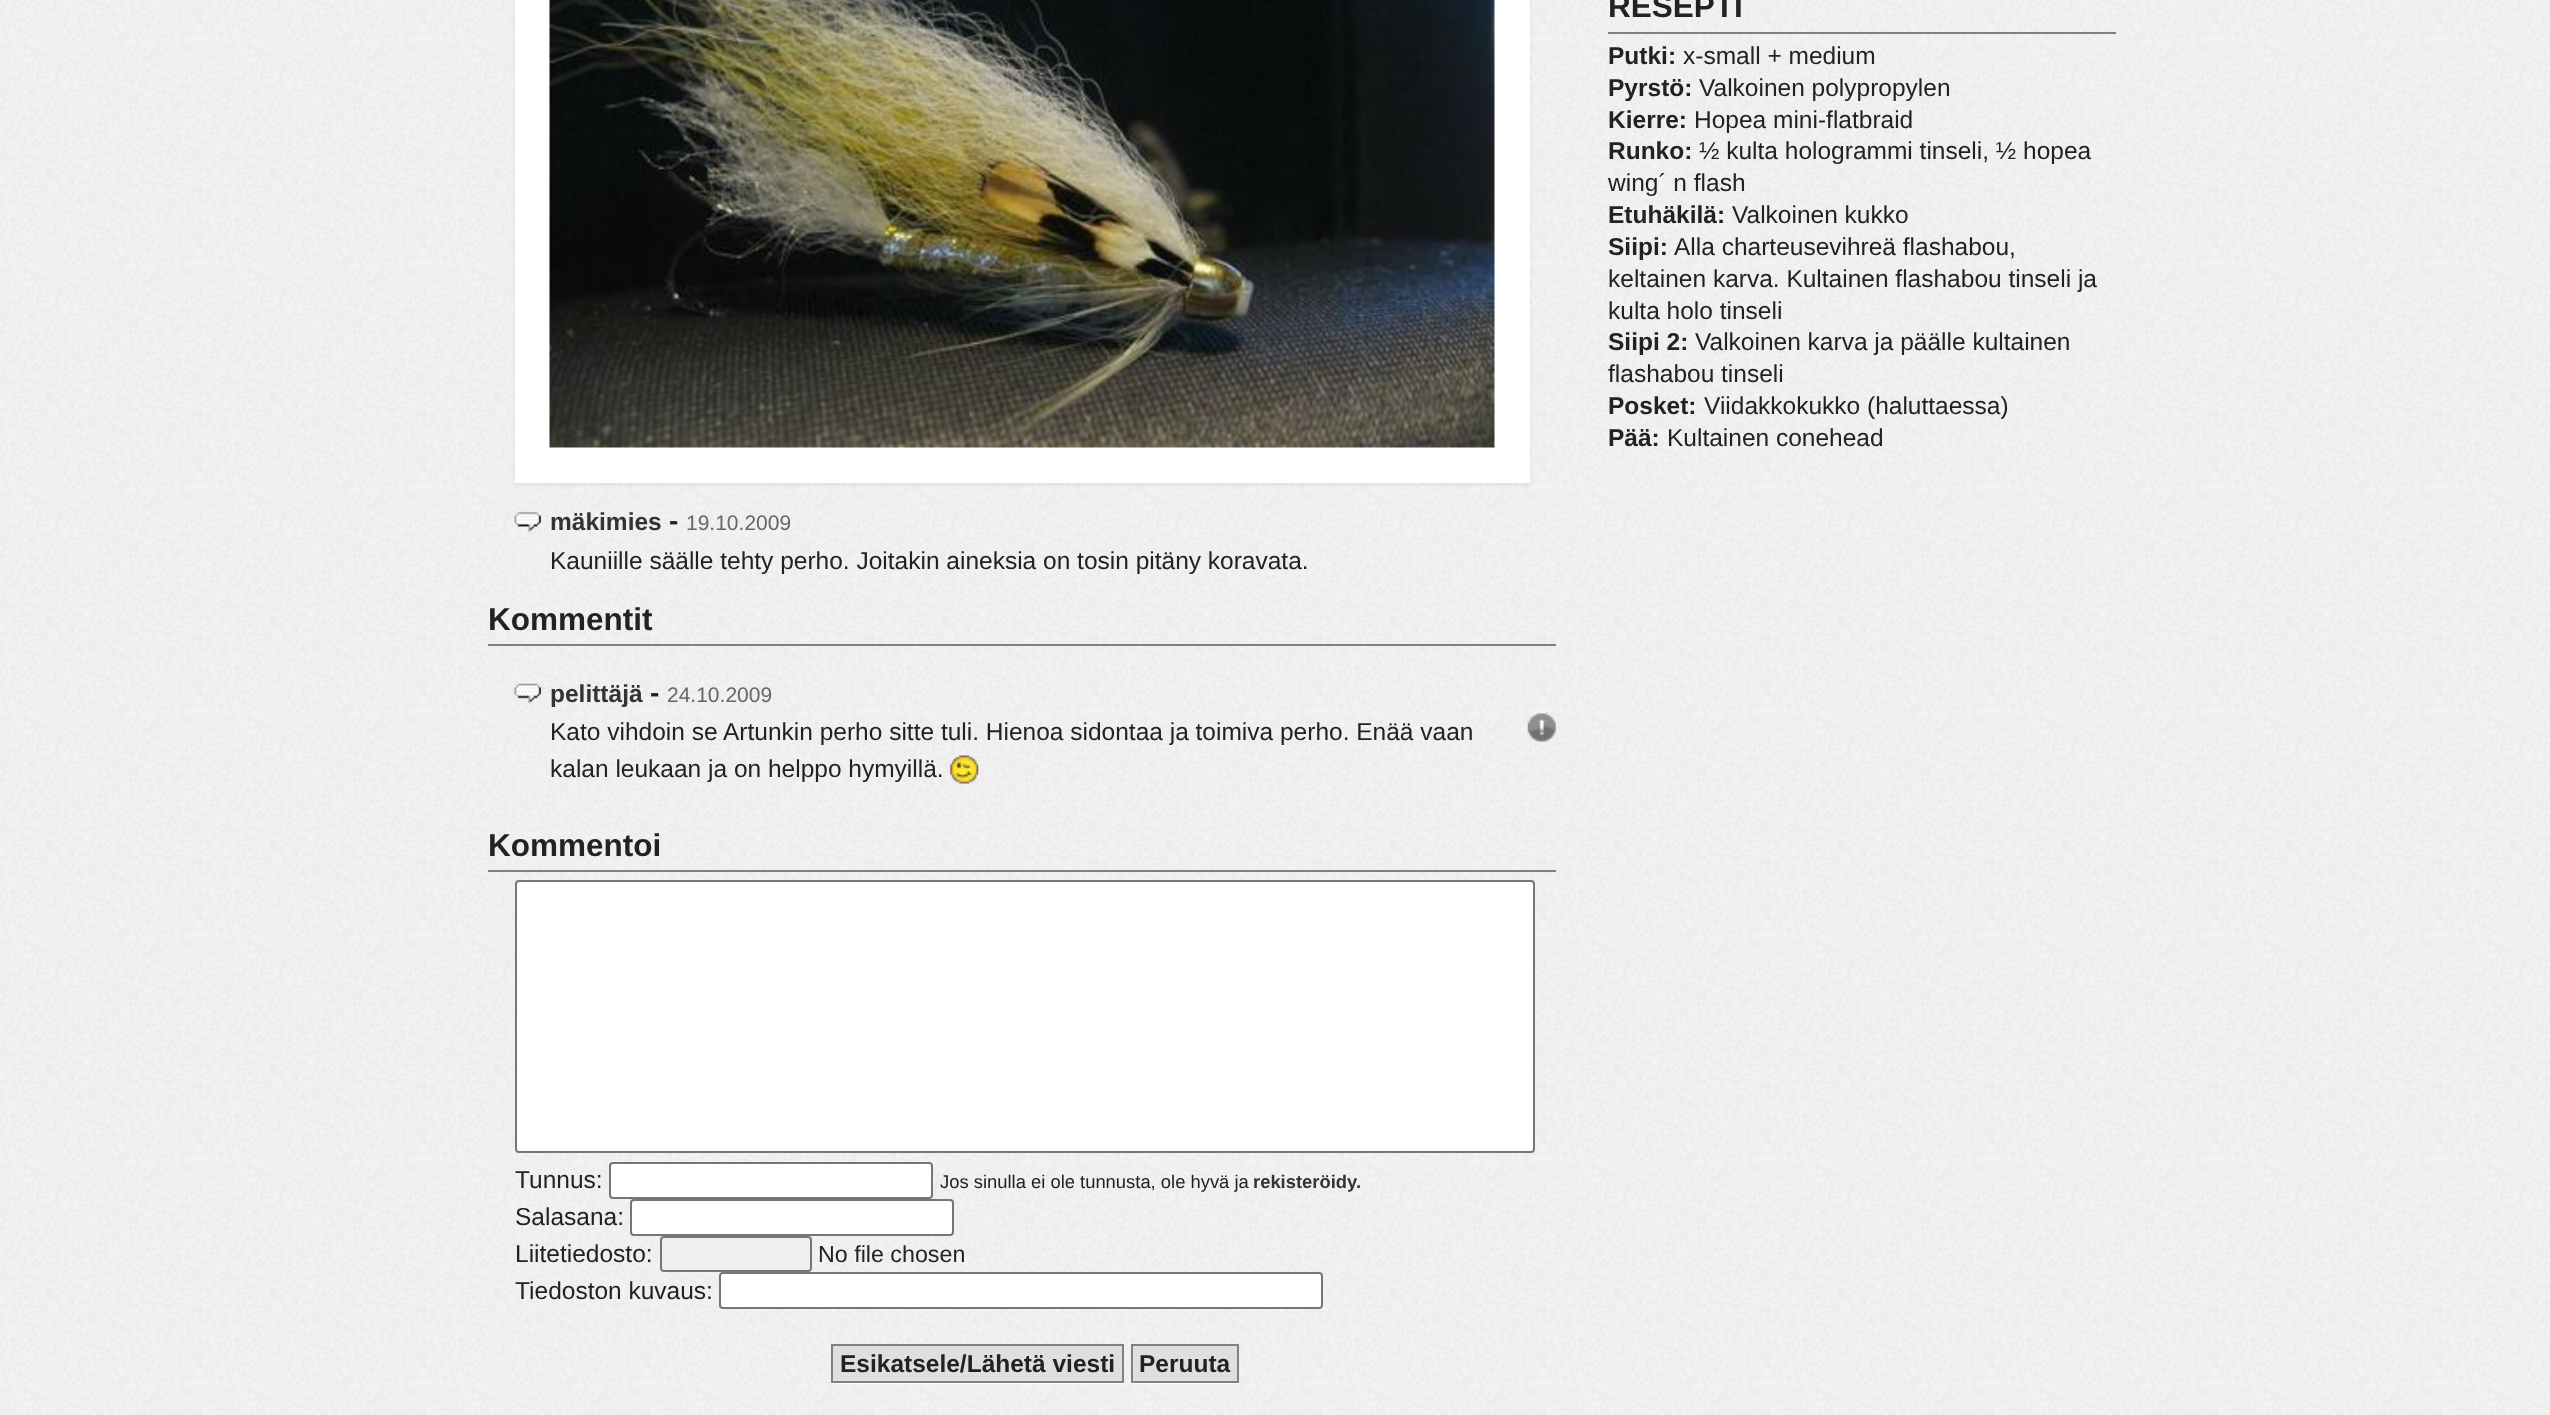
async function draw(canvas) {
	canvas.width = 2550;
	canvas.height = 1415;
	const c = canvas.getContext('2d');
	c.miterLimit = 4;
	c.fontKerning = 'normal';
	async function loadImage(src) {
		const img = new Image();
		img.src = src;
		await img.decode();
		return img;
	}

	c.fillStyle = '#fff';
	c.fillRect(0, 0, 2550, 1415);
	c.drawImage(await loadImage('img1.png'), 0, 0, 2550, 1415);
	c.fillStyle = '#808080';
	c.fillRect(1608, 32, 508, 2);
	c.font = 'bold 31.5px Liberation Sans';
	c.fillStyle = '#222';
	c.fillText('RESEPTI', 1608, 17);
	c.font = 'bold 24.5px Liberation Sans';
	c.fillText('Putki:', 1608, 64);
	c.font = '24.5px Liberation Sans';
	c.fillText('x-small + medium', 1683, 64);
	c.font = 'bold 24.5px Liberation Sans';
	c.fillText('Pyrstö:', 1608, 96);
	c.font = '24.5px Liberation Sans';
	c.fillText('Valkoinen polypropylen', 1699, 96);
	c.font = 'bold 24.5px Liberation Sans';
	c.fillText('Kierre:', 1608, 128);
	c.font = '24.5px Liberation Sans';
	c.fillText('Hopea mini-flatbraid', 1694, 128);
	c.font = 'bold 24.5px Liberation Sans';
	c.fillText('Runko:', 1608, 159);
	c.font = '24.5px Liberation Sans';
	c.fillText('½ kulta hologrammi tinseli, ½ hopea', 1699, 159);
	c.fillText('wing´ n flash', 1608, 191);
	c.font = 'bold 24.5px Liberation Sans';
	c.fillText('Etuhäkilä:', 1608, 223);
	c.font = '24.5px Liberation Sans';
	c.fillText('Valkoinen kukko', 1732, 223);
	c.font = 'bold 24.5px Liberation Sans';
	c.fillText('Siipi:', 1608, 255);
	c.font = '24.5px Liberation Sans';
	for (const [text, x, y] of [
		['Alla charteusevihreä flashabou,', 1674, 255],
		['keltainen karva. Kultainen flashabou tinseli ja', 1608, 287],
		['kulta holo tinseli', 1608, 319],
	]) {
		c.fillText(text, x, y);
	}
	c.font = 'bold 24.5px Liberation Sans';
	c.fillText('Siipi 2:', 1608, 350);
	c.font = '24.5px Liberation Sans';
	c.fillText('Valkoinen karva ja päälle kultainen', 1695, 350);
	c.fillText('flashabou tinseli', 1608, 382);
	c.font = 'bold 24.5px Liberation Sans';
	c.fillText('Posket:', 1608, 414);
	c.font = '24.5px Liberation Sans';
	c.fillText('Viidakkokukko (haluttaessa)', 1704, 414);
	c.font = 'bold 24.5px Liberation Sans';
	c.fillText('Pää:', 1608, 446);
	c.font = '24.5px Liberation Sans';
	c.fillText('Kultainen conehead', 1667, 446);
	c.fillStyle = '#00000012';
	c.filter = 'blur(2px)';
	c.beginPath();
	c.rect(515, -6, 1015, 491);
	c.fill();
	c.filter = 'none';
	c.fillStyle = '#fff';
	c.fillRect(515, 0, 1015, 483);
	c.drawImage(await loadImage('img2.png'), 549, 0, 946, 448);
	c.drawImage(await loadImage('img3.png'), 514, 512, 27, 20);
	c.font = 'bold 24.5px Liberation Sans';
	c.fillStyle = '#333';
	c.fillText('mäkimies', 550, 530);
	c.font = 'bold 28px Liberation Sans';
	c.fillStyle = '#222';
	c.fillText('-', 669, 530);
	c.font = '21px Liberation Sans';
	c.fillStyle = '#666';
	c.fillText('19.10.2009', 686, 530);
	c.font = '24.5px Liberation Sans';
	c.fillStyle = '#222';
	c.fillText('Kauniille säälle tehty perho. Joitakin aineksia on tosin pitäny koravata.', 550, 569);
	c.fillStyle = '#808080';
	c.fillRect(488, 644, 1068, 2);
	c.font = 'bold 31.5px Liberation Sans';
	c.fillStyle = '#222';
	c.fillText('Kommentit', 488, 630);
	c.drawImage(await loadImage('img4.png'), 514, 683, 27, 20);
	c.font = 'bold 24.5px Liberation Sans';
	c.fillStyle = '#333';
	c.fillText('pelittäjä', 550, 702);
	c.font = 'bold 28px Liberation Sans';
	c.fillStyle = '#222';
	c.fillText('-', 650, 702);
	c.font = '21px Liberation Sans';
	c.fillStyle = '#666';
	c.fillText('24.10.2009', 667, 702);
	c.font = '24.5px Liberation Sans';
	c.fillStyle = '#222';
	c.fillText('Kato vihdoin se Artunkin perho sitte tuli. Hienoa sidontaa ja toimiva perho. Enää vaan', 550, 740);
	c.fillText('kalan leukaan ja on helppo hymyillä.', 550, 777);
	c.drawImage(await loadImage('img5.png'), 950, 755, 29, 29);
	c.drawImage(await loadImage('img6.png'), 1527, 713, 29, 29);
	c.fillStyle = '#808080';
	c.fillRect(488, 870, 1068, 2);
	c.font = 'bold 31.5px Liberation Sans';
	c.fillStyle = '#222';
	c.fillText('Kommentoi', 488, 856);
	c.fillStyle = '#fff';
	c.beginPath();
	c.roundRect(516, 881, 1018, 271, 3);
	c.fill();
	c.strokeStyle = '#767676';
	c.lineWidth = 2;
	c.stroke();
	c.font = '24.5px Liberation Sans';
	c.fillStyle = '#222';
	c.fillText('Tunnus:', 515, 1188);
	c.fillStyle = '#fff';
	c.beginPath();
	c.roundRect(610, 1163, 322, 35, 3);
	c.fill();
	c.stroke();
	c.font = '18.4px Liberation Sans';
	c.fillStyle = '#222';
	c.fillText('Jos sinulla ei ole tunnusta, ole hyvä ja', 940, 1188);
	c.font = 'bold 18.4px Liberation Sans';
	c.fillStyle = '#333';
	c.fillText('rekisteröidy.', 1253, 1188);
	c.font = '24.5px Liberation Sans';
	c.fillStyle = '#222';
	c.fillText('Salasana:', 515, 1225);
	c.fillStyle = '#fff';
	c.beginPath();
	c.roundRect(631, 1200, 322, 35, 3);
	c.fill();
	c.stroke();
	c.fillStyle = '#222';
	c.fillText('Liitetiedosto:', 515, 1262);
	c.fillStyle = '#efefef';
	c.beginPath();
	c.roundRect(661, 1237, 150, 34, 3);
	c.fill();
	c.stroke();
	c.font = '23.25px Liberation Sans';
	c.fillStyle = '#222';
	c.fillText('No file chosen', 818, 1262);
	c.font = '24.5px Liberation Sans';
	c.fillText('Tiedoston kuvaus:', 515, 1299);
	c.fillStyle = '#fff';
	c.beginPath();
	c.roundRect(720, 1273, 602, 35, 3);
	c.fill();
	c.stroke();
	c.beginPath();
	c.moveTo(831, 1346);
	c.lineTo(831, 1384);
	c.lineTo(1124, 1384);
	c.lineTo(1124, 1346);
	c.lineTo(1124, 1382);
	c.lineTo(831, 1382);
	c.closePath();
	c.fill();
	c.fillStyle = '#dfdfdf';
	c.beginPath();
	c.rect(832, 1345, 291, 37);
	c.fill();
	c.strokeStyle = '#808080';
	c.stroke();
	c.font = 'bold 24.5px Liberation Sans';
	c.fillStyle = '#222';
	c.fillText('Esikatsele/Lähetä viesti', 840, 1372);
	c.fillStyle = '#fff';
	c.fillRect(1131, 1383, 108, 1);
	c.fillStyle = '#dfdfdf';
	c.beginPath();
	c.rect(1132, 1345, 106, 37);
	c.fill();
	c.stroke();
	c.fillStyle = '#222';
	c.fillText('Peruuta', 1139, 1372);
}

draw(document.querySelector('canvas'));
